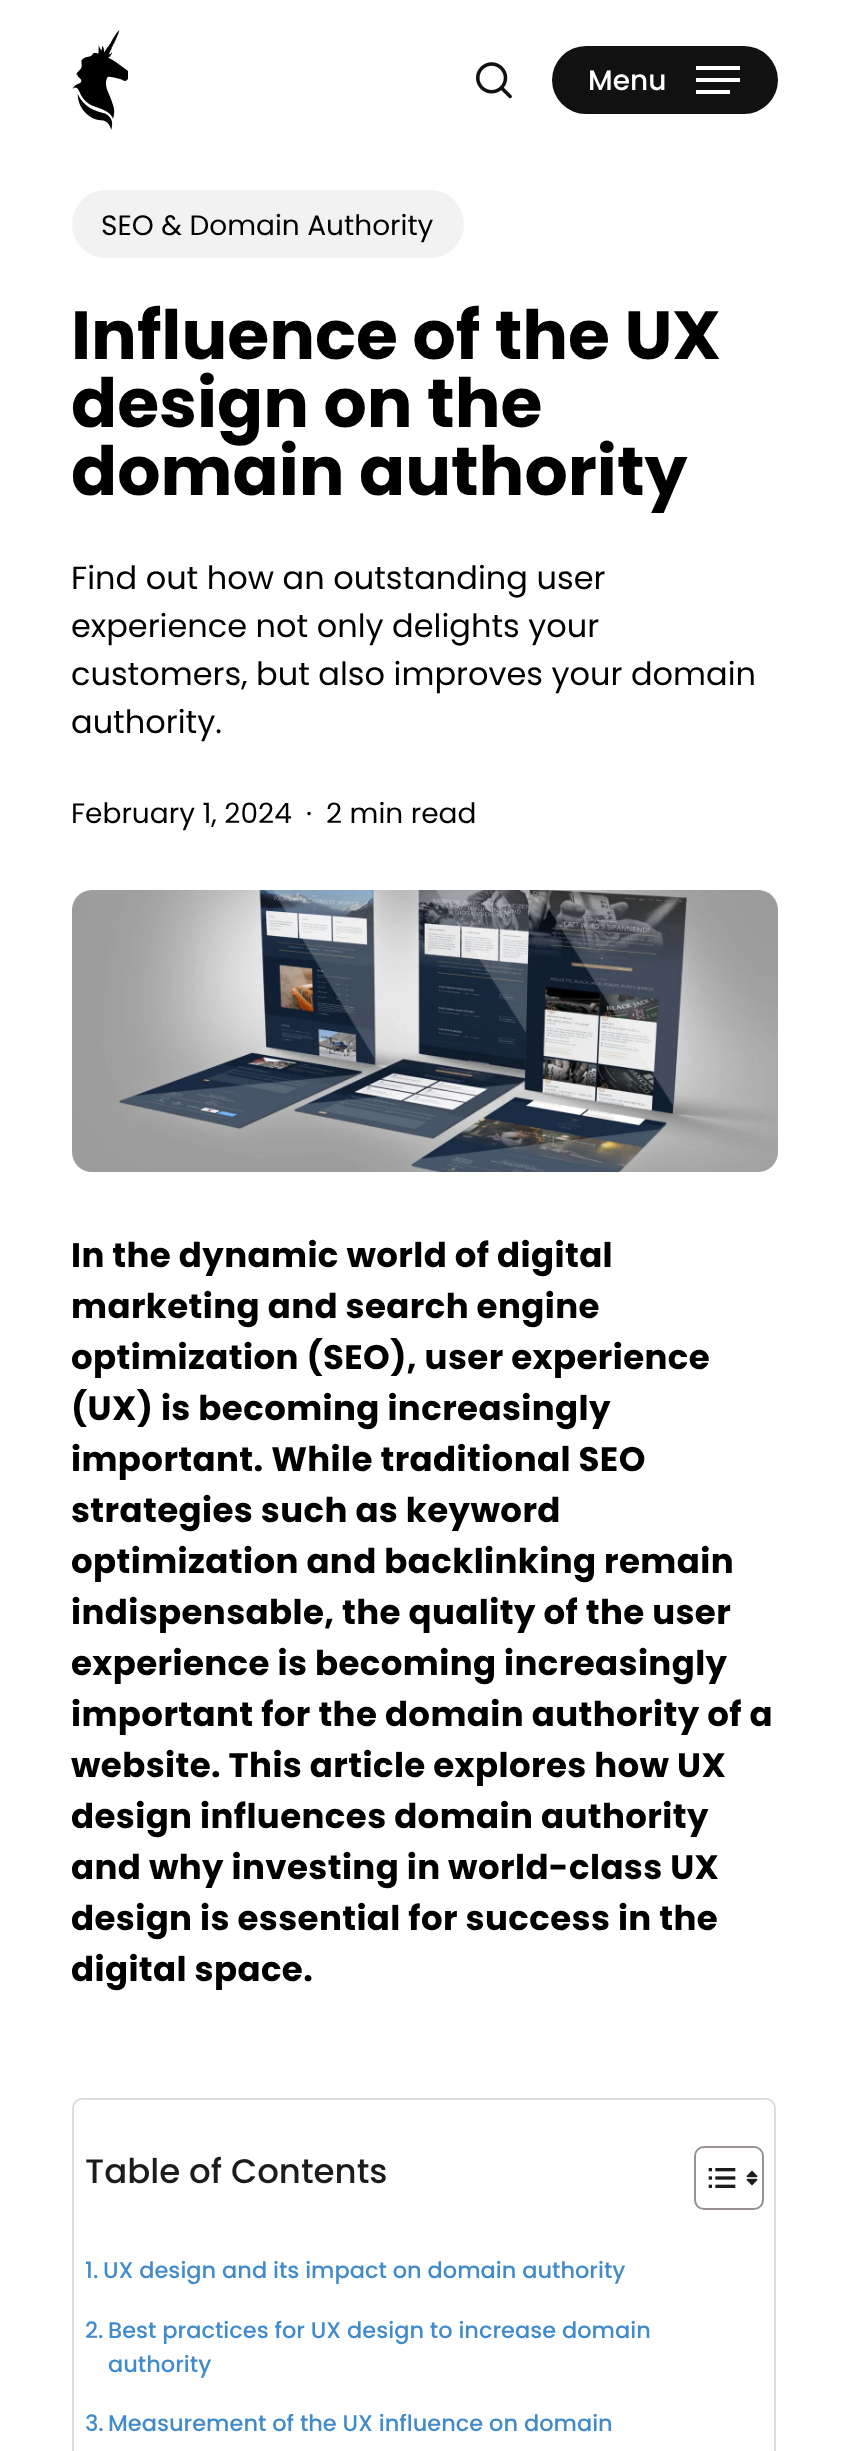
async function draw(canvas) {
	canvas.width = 848;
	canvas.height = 2451;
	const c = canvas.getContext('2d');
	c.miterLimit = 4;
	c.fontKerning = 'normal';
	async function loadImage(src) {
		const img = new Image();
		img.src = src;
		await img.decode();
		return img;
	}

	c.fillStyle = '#fff';
	c.fillRect(0, 0, 848, 2451);
	c.drawImage(await loadImage('img1.png'), 72, 30, 56, 100);
	c.drawImage(await loadImage('img2.png'), 476, 62, 36, 37);
	c.fillStyle = '#111';
	c.beginPath();
	c.roundRect(552, 46, 226, 68, 34);
	c.fill();
	c.font = '500 28px Poppins';
	c.fillStyle = '#fff';
	c.fillText('Menu', 588, 90);
	for (const [x, y, w, h, color] of [
		[696, 66, 44, 4, '#fff'],
		[696, 90, 34, 4, '#fff'],
		[696, 78, 44, 4, '#fff'],
	]) {
		c.fillStyle = color;
		c.fillRect(x, y, w, h);
	}
	c.fillStyle = '#f2f2f2';
	c.beginPath();
	c.roundRect(72, 190, 392, 68, 34);
	c.fill();
	c.font = '28px Poppins';
	c.fillStyle = '#000';
	c.fillText('SEO & Domain Authority', 101, 235);
	c.font = 'bold 68px Poppins';
	for (const [text, x, y] of [
		['Influence of the UX', 71, 359],
		['design on the', 71, 427],
		['domain authority', 71, 495],
	]) {
		c.fillText(text, x, y);
	}
	c.font = '32px Poppins';
	for (const [text, x, y] of [
		['Find out how an outstanding user', 71, 589],
		['experience not only delights your', 71, 637],
		['customers, but also improves your domain', 71, 685],
		['authority.', 71, 733],
	]) {
		c.fillText(text, x, y);
	}
	c.font = '28px Poppins';
	for (const [text, x, y] of [
		['February 1, 2024', 71, 823],
		['·', 306, 823],
		['2 min read', 326, 823],
	]) {
		c.fillText(text, x, y);
	}
	c.drawImage(await loadImage('img3.png'), 72, 890, 706, 282);
	c.letterSpacing = '0.4px';
	c.font = 'bold 34px Poppins';
	for (const [text, x, y] of [
		['In the dynamic world of digital', 71, 1267],
		['marketing and search engine', 71, 1318],
		['optimization (SEO), user experience', 71, 1369],
		['(UX) is becoming increasingly', 71, 1420],
		['important. While traditional SEO', 71, 1471],
		['strategies such as keyword', 71, 1522],
		['optimization and backlinking remain', 71, 1573],
		['indispensable, the quality of the user', 71, 1624],
		['experience is becoming increasingly', 71, 1675],
		['important for the domain authority of a', 71, 1726],
		['website. This article explores how UX', 71, 1777],
		['design influences domain authority', 71, 1828],
		['and why investing in world-class UX', 71, 1879],
		['design is essential for success in the', 71, 1930],
		['digital space.', 71, 1981],
	]) {
		c.fillText(text, x, y);
	}
	c.beginPath();
	c.roundRect(73, 2099, 702, 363, 9);
	c.strokeStyle = '#ddd';
	c.lineWidth = 2;
	c.stroke();
	c.letterSpacing = '0px';
	c.font = '500 34px Poppins';
	c.fillStyle = '#1c1c1c';
	c.fillText('Table of Contents', 85, 2183);
	c.beginPath();
	c.roundRect(695, 2147, 68, 62, 9);
	c.strokeStyle = '#999191';
	c.stroke();
	c.drawImage(await loadImage('img4.png'), 708, 2168, 28, 20);
	c.drawImage(await loadImage('img5.png'), 746, 2170, 12, 16);
	c.font = '500 22.5px Poppins';
	c.fillStyle = '#428bca';
	for (const [text, x, y] of [
		['1.', 85, 2278],
		['UX design and its impact on domain authority', 103, 2278],
		['2.', 85, 2338],
		['Best practices for UX design to increase domain', 108, 2338],
		['authority', 108, 2372],
		['3.', 85, 2431],
		['Measurement of the UX influence on domain', 108, 2431],
	]) {
		c.fillText(text, x, y);
	}
}

draw(document.querySelector('canvas'));
